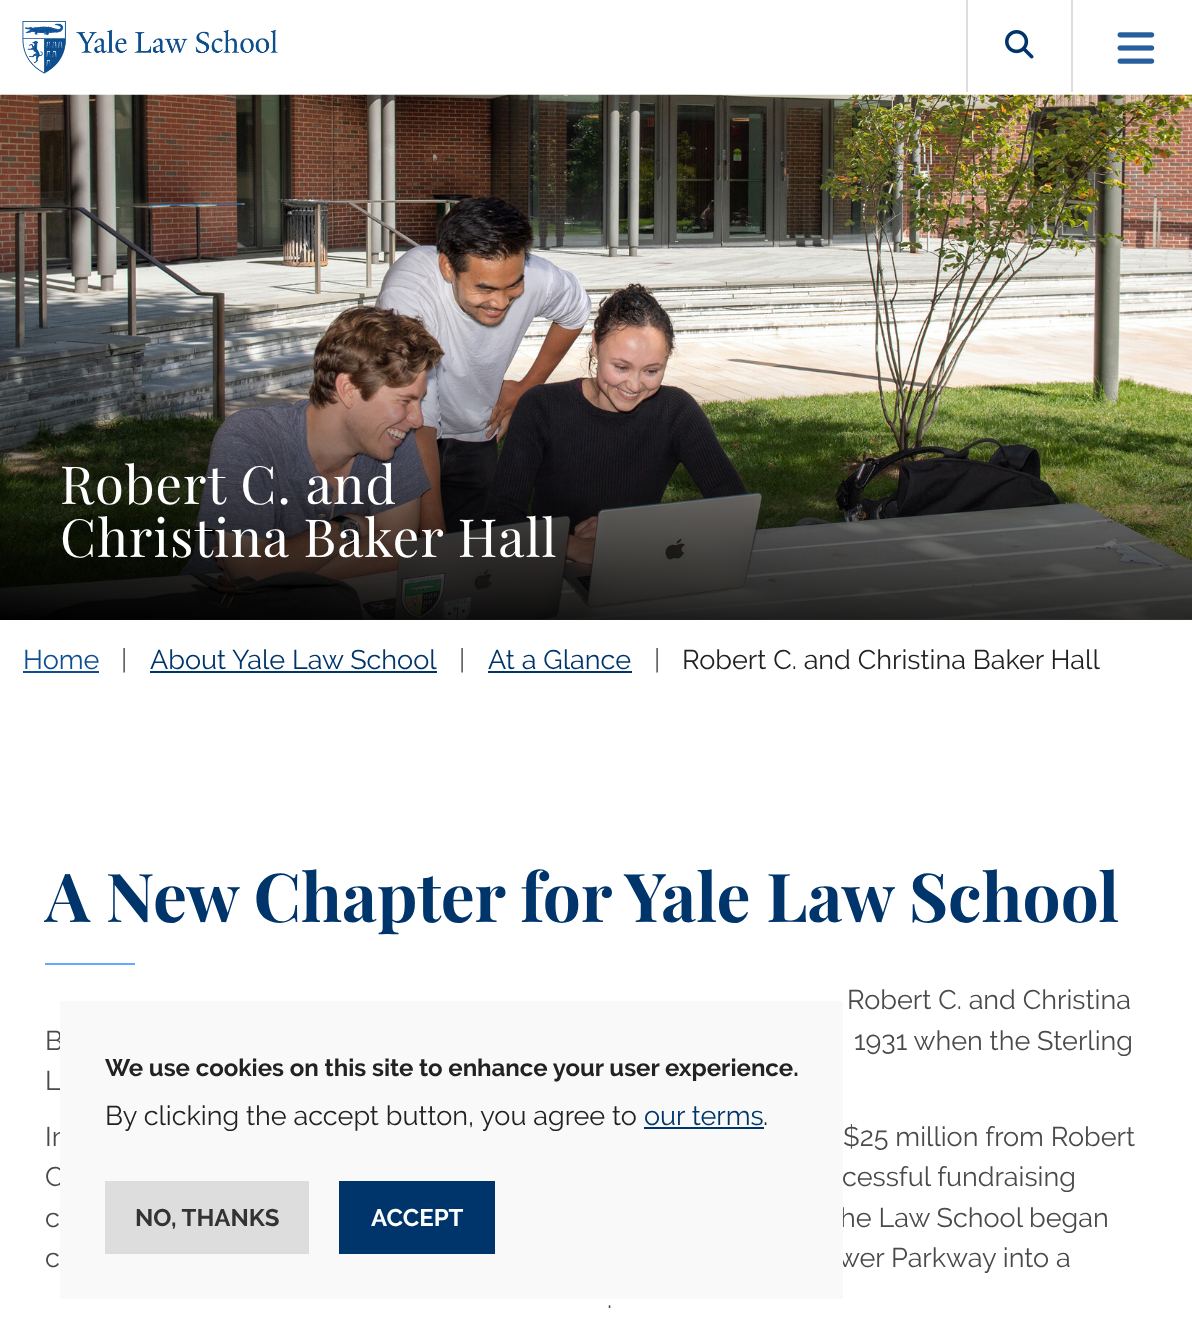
async function draw(canvas) {
	canvas.width = 1192;
	canvas.height = 1344;
	const c = canvas.getContext('2d');
	c.miterLimit = 4;
	c.fontKerning = 'normal';
	async function loadImage(src) {
		const img = new Image();
		img.src = src;
		await img.decode();
		return img;
	}
	let gradient;

	c.fillStyle = '#fff';
	c.fillRect(0, 0, 1192, 1344);
	c.drawImage(await loadImage('img1.png'), 22, 21, 256, 53);
	c.fillStyle = '#ddd';
	c.fillRect(1071, 0, 2, 92);
	c.fillRect(966, 0, 2, 92);
	c.drawImage(await loadImage('img2.png'), 1005, 30, 29, 29);
	c.drawImage(await loadImage('img3.png'), 1117, 32, 38, 32);
	c.drawImage(await loadImage('img4.png'), 0, 94, 1192, 526);
	gradient = c.createLinearGradient(586, 650, 607, 247);
	gradient.addColorStop(0, '#000');
	gradient.addColorStop(0.7, '#00000000');
	c.fillStyle = gradient;
	c.fillRect(0, 346, 1192, 274);
	c.letterSpacing = '1.05px';
	c.font = '52.5px Playfair Display';
	c.fillStyle = '#fff';
	c.fillText('Robert C. and', 60, 504);
	c.fillText('Christina Baker Hall', 60, 557);
	c.letterSpacing = '0px';
	c.font = '27px Raleway';
	c.fillStyle = '#0f4d92';
	c.fillText('Home', 23, 669);
	c.fillRect(23, 671, 76, 2);
	c.fillStyle = '#595c5f';
	c.fillText('|', 121, 669);
	c.fillStyle = '#00356b';
	c.fillText('About Yale Law School', 150, 669);
	c.fillRect(150, 671, 287, 2);
	c.fillStyle = '#595c5f';
	c.fillText('|', 459, 669);
	c.fillStyle = '#00356b';
	c.fillText('At a Glance', 488, 669);
	c.fillRect(488, 671, 144, 2);
	c.fillStyle = '#595c5f';
	c.fillText('|', 654, 669);
	c.fillStyle = '#222';
	c.fillText('Robert C. and Christina Baker Hall', 682, 669);
	c.font = 'bold 67.5px Playfair Display';
	c.fillStyle = '#00356b';
	c.fillText('A New Chapter for Yale Law School', 45, 922);
	c.fillStyle = '#63aaff';
	c.fillRect(45, 963, 90, 2);
	c.font = '27px Raleway';
	c.fillStyle = '#4a4a4a';
	for (const [text, x, y] of [
		['Robert C. and Christina', 847, 1009],
		['B', 45, 1050],
		['1931 when the Sterling', 854, 1050],
		['L', 45, 1090],
		['In', 45, 1146],
		['$25 million from Robert', 843, 1146],
		['C', 45, 1186],
		['cessful fundraising', 842, 1186],
		['c', 45, 1227],
		['he Law School began', 840, 1227],
		['c', 45, 1267],
		['wer Parkway into a', 838, 1267],
		['.', 607, 1308],
	]) {
		c.fillText(text, x, y);
	}
	c.fillStyle = '#f9f9f9';
	c.fillRect(60, 1001, 783, 298);
	c.font = 'bold 24px Raleway';
	c.fillStyle = '#222';
	c.fillText('We use cookies on this site to enhance your user experience.', 105, 1076);
	c.font = '27px Raleway';
	c.fillText('By clicking the accept button, you agree to', 105, 1125);
	c.fillStyle = '#00356b';
	c.fillText('our terms', 644, 1125);
	c.fillRect(644, 1127, 120, 2);
	c.fillStyle = '#222';
	c.fillText('.', 763, 1125);
	c.fillStyle = '#ddd';
	c.fillRect(105, 1181, 204, 73);
	c.font = 'bold 24px Raleway';
	c.fillStyle = '#333';
	c.fillText('NO, THANKS', 135, 1226);
	c.fillStyle = '#00356b';
	c.fillRect(339, 1181, 156, 73);
	c.fillStyle = '#fff';
	c.fillText('ACCEPT', 371, 1226);
}

draw(document.querySelector('canvas'));
